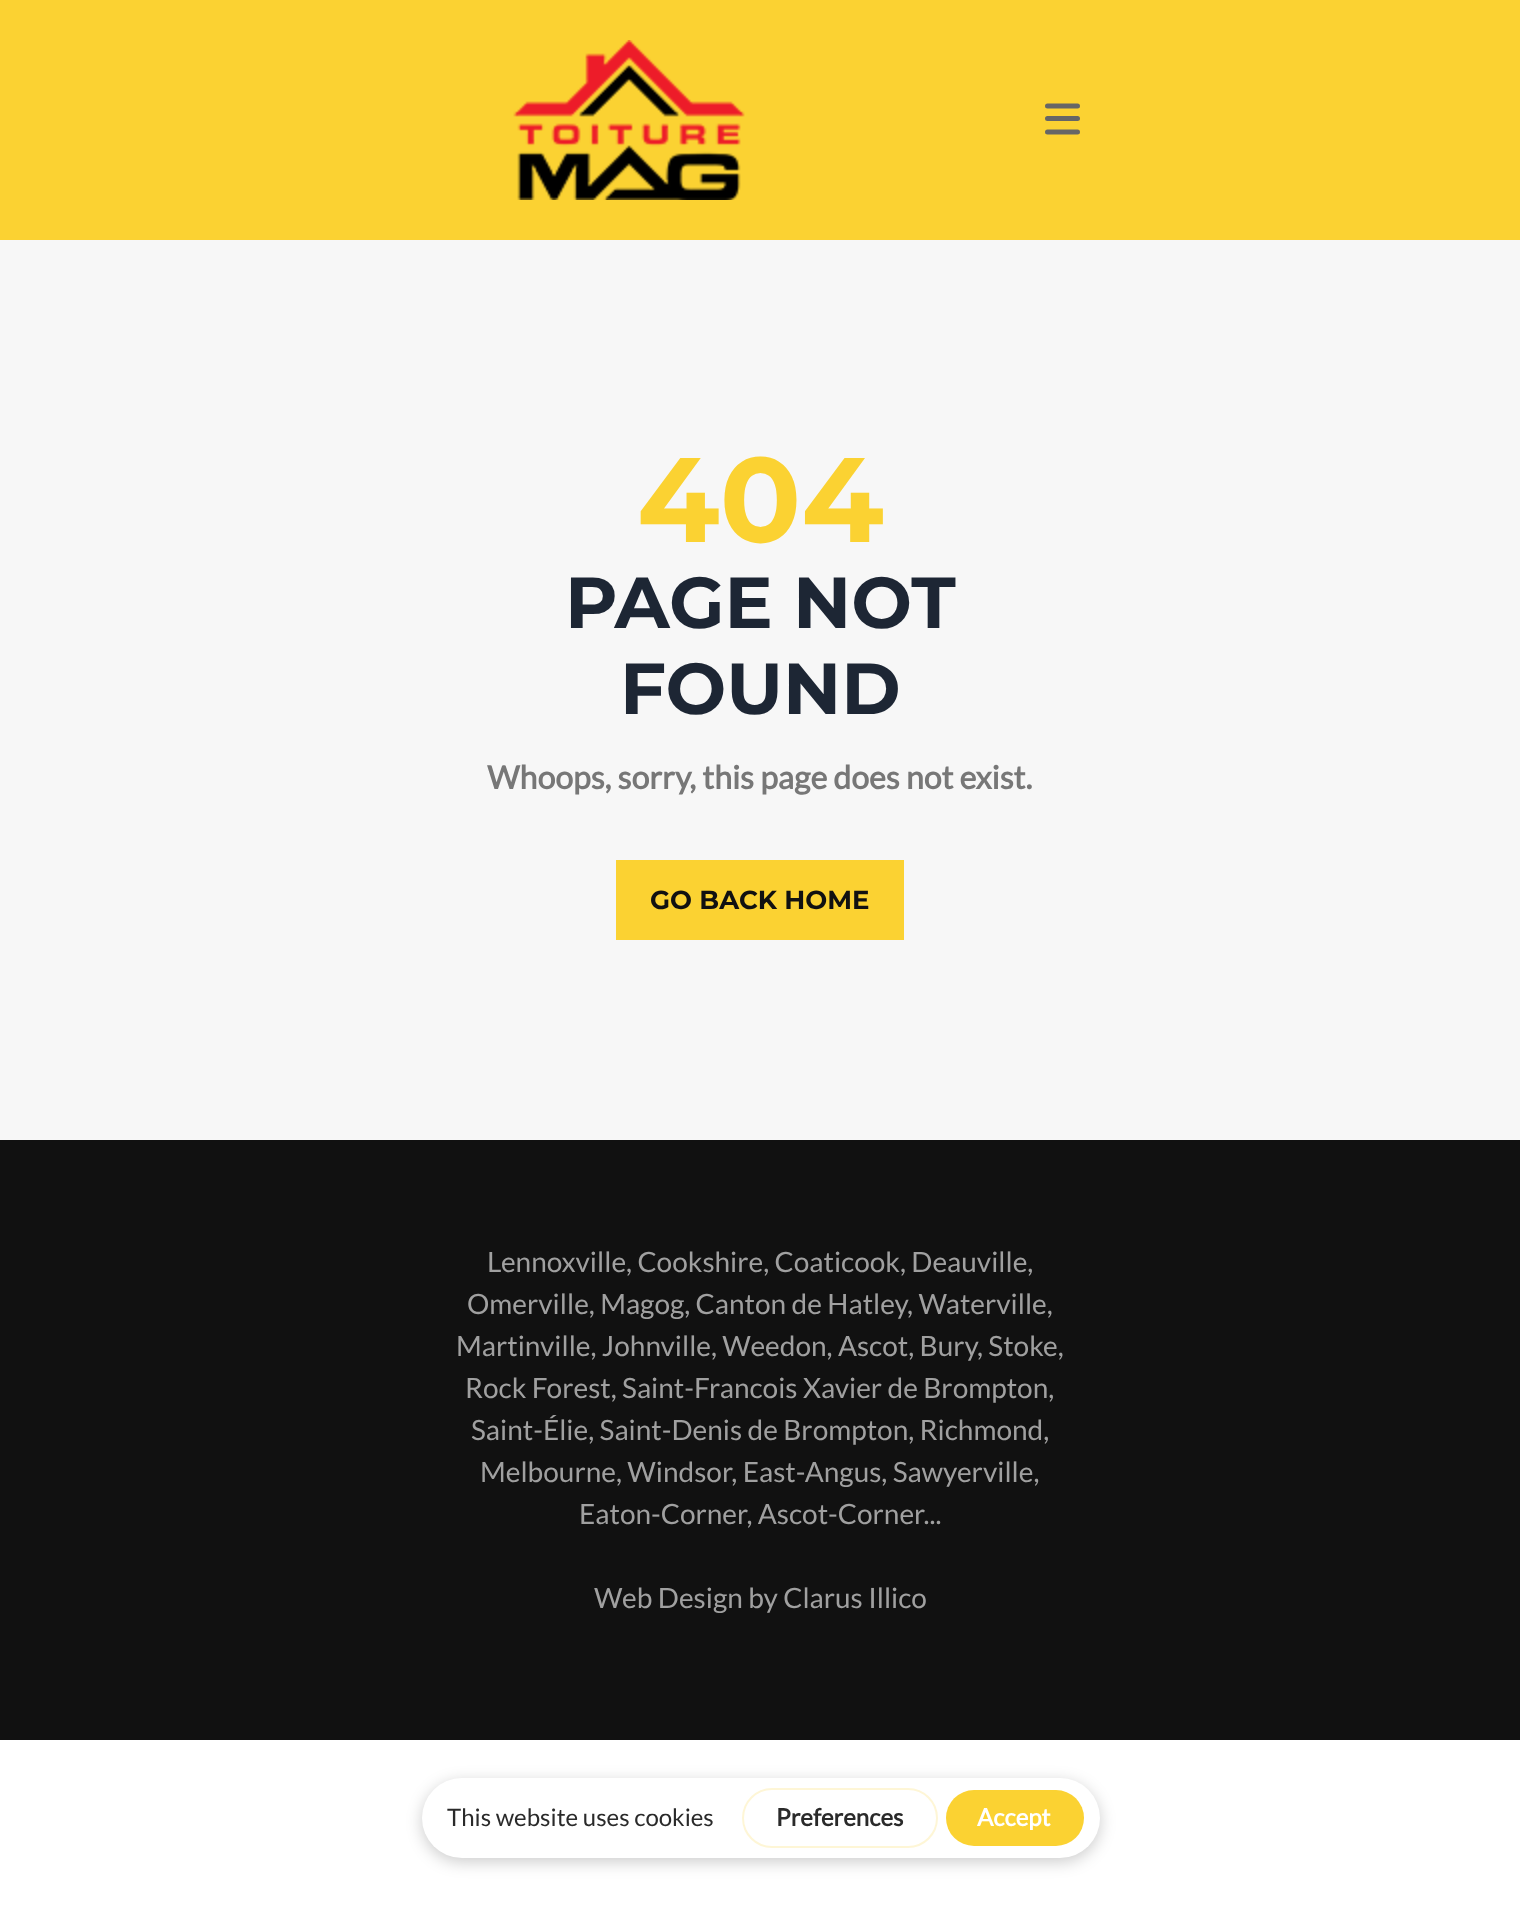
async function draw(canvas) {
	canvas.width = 1520;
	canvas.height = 1918;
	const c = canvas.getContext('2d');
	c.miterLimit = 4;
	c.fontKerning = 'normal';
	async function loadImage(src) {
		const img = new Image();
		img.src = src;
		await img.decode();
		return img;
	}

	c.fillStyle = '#fff';
	c.fillRect(0, 0, 1520, 1918);
	c.fillStyle = '#fbd232';
	c.fillRect(0, 0, 1520, 240);
	c.drawImage(await loadImage('img1.png'), 513, 40, 232, 160);
	c.beginPath();
	c.moveTo(1047.5, 106);
	c.lineTo(1077.5, 106);
	c.moveTo(1047.5, 118.5);
	c.lineTo(1077.5, 118.5);
	c.moveTo(1047.5, 132);
	c.lineTo(1077.5, 132);
	c.strokeStyle = '#666';
	c.lineWidth = 5;
	c.lineCap = 'round';
	c.stroke();
	c.fillStyle = '#f7f7f7';
	c.fillRect(0, 240, 1520, 900);
	c.font = '100 120px Montserrat';
	c.fillStyle = '#fbd232';
	c.fillText('404', 637, 542);
	c.font = '100 72px Montserrat';
	c.fillStyle = '#1d2634';
	c.fillText('PAGE NOT', 565, 628);
	c.fillText('FOUND', 620, 714);
	c.font = 'bold 32px Lato';
	c.fillStyle = '#777';
	c.fillText('Whoops, sorry, this page does not exist.', 487, 789);
	c.fillStyle = '#fbd232';
	c.fillRect(616, 860, 288, 80);
	c.font = '100 26px Montserrat';
	c.fillStyle = '#111';
	c.fillText('GO BACK HOME', 650, 909);
	c.fillRect(0, 1140, 1520, 600);
	c.font = '28px Lato';
	c.fillStyle = '#a0a0a0';
	for (const [text, x, y] of [
		['Lennoxville, Cookshire, Coaticook, Deauville,', 487, 1272],
		['Omerville, Magog, Canton de Hatley, Waterville,', 467, 1314],
		['Martinville, Johnville, Weedon, Ascot, Bury, Stoke,', 456, 1356],
		['Rock Forest, Saint-Francois Xavier de Brompton,', 465, 1398],
		['Saint-Élie, Saint-Denis de Brompton, Richmond,', 471, 1440],
		['Melbourne, Windsor, East-Angus, Sawyerville,', 480, 1482],
		['Eaton-Corner, Ascot-Corner...', 579, 1524],
		['Web Design by Clarus Illico', 594, 1608],
	]) {
		c.fillText(text, x, y);
	}
	c.fillStyle = '#00000033';
	c.filter = 'blur(8px)';
	c.beginPath();
	c.roundRect(422, 1782, 678, 80, 40);
	c.fill();
	c.filter = 'none';
	c.fillStyle = '#fff';
	c.beginPath();
	c.roundRect(422, 1778, 678, 80, 40);
	c.fill();
	c.font = '24px Lato';
	c.fillStyle = '#2a2a2a';
	c.fillText('This website uses cookies', 447, 1826);
	c.beginPath();
	c.roundRect(743, 1789, 194, 58, 29);
	c.strokeStyle = '#fef6d6';
	c.lineWidth = 2;
	c.stroke();
	c.font = 'bold 24px Lato';
	c.fillText('Preferences', 776, 1826);
	c.fillStyle = '#fbd232';
	c.beginPath();
	c.roundRect(946, 1790, 138, 56, 28);
	c.fill();
	c.fillStyle = '#fff';
	c.fillText('Accept', 977, 1826);
}

draw(document.querySelector('canvas'));
